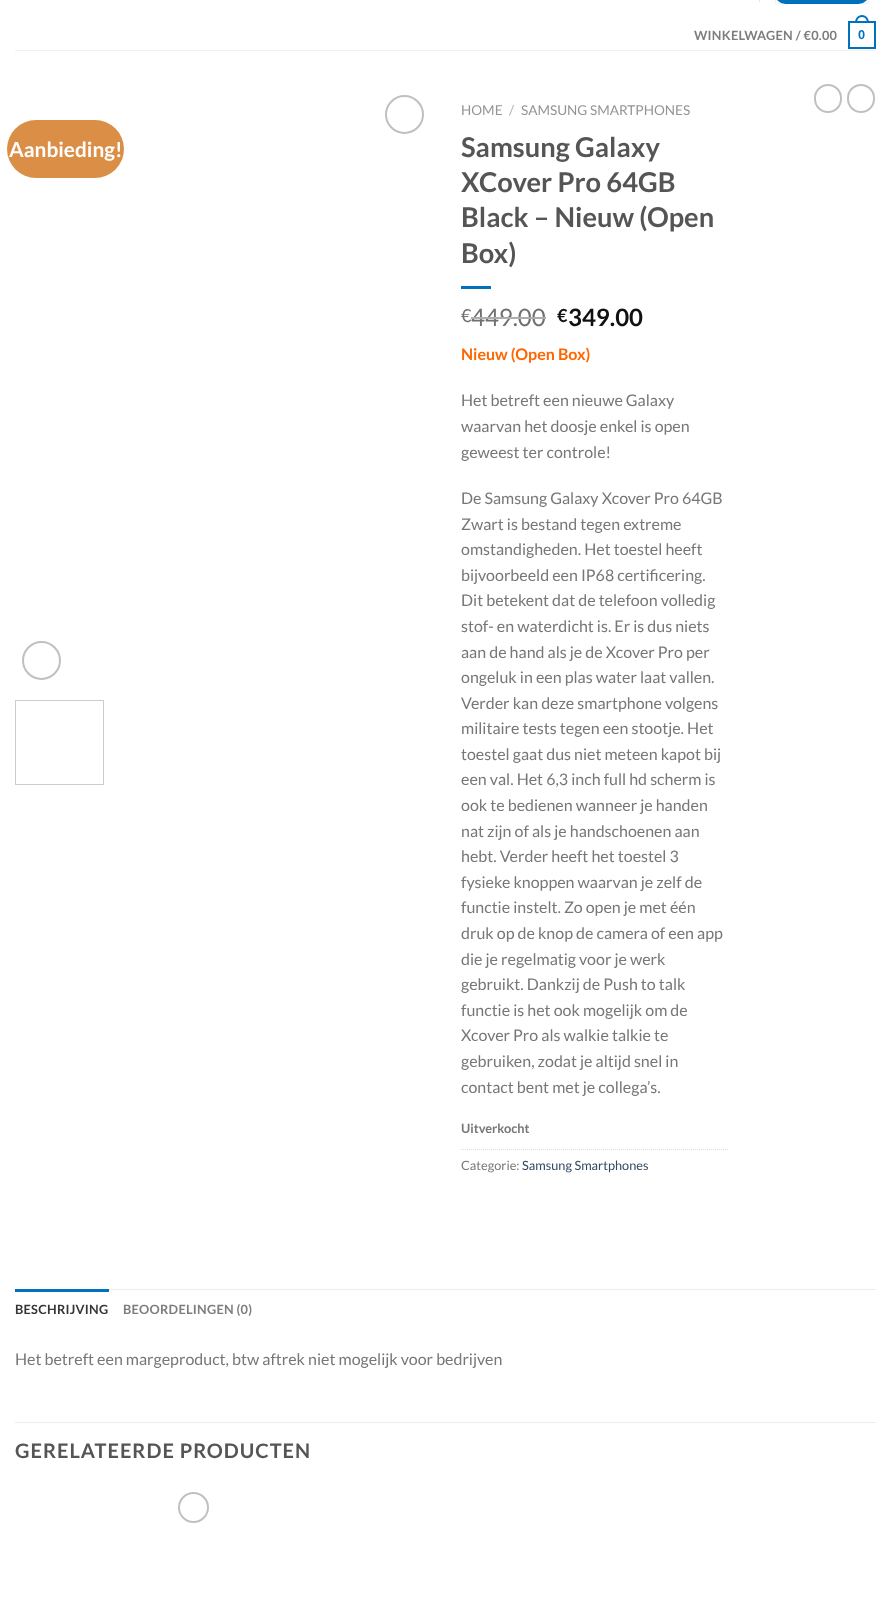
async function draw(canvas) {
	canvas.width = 891;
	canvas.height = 1620;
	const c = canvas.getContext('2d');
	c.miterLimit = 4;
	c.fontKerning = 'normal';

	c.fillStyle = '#fff';
	c.fillRect(0, 0, 891, 1620);
	c.fillStyle = '#e6e6e6';
	c.fillRect(759, 0, 1, 2);
	c.fillStyle = '#0071bc';
	c.beginPath();
	c.roundRect(775, -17, 94, 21, 17);
	c.fill();
	c.strokeStyle = '#0000000d';
	c.strokeRect(775.5, -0.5, 93, 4);
	c.letterSpacing = '0.25px';
	c.font = 'bold 12.75px Lato';
	c.fillStyle = '#7d7d7d';
	c.fillText('WINKELWAGEN / €0.00', 694, 40);
	c.strokeStyle = '#0071bc';
	c.lineWidth = 2;
	c.strokeRect(849, 22, 26, 26);
	c.fillStyle = '#0071bc';
	c.beginPath();
	c.moveTo(862, 15);
	c.bezierCurveTo(866.5, 15, 869, 19, 869, 23);
	c.lineTo(855, 23);
	c.bezierCurveTo(855, 19, 857.5, 15, 862, 15);
	c.closePath();
	c.moveTo(862, 17);
	c.bezierCurveTo(865.5, 17, 867, 20, 867, 23);
	c.lineTo(857, 23);
	c.bezierCurveTo(857, 20, 858.5, 17, 862, 17);
	c.closePath();
	c.fill('evenodd');
	c.font = 'bold 12.75px Liberation Sans';
	c.fillText('0', 858, 39);
	c.fillStyle = '#f1f1f1';
	c.fillRect(15, 50, 861, 1);
	c.beginPath();
	c.roundRect(815, 85, 26, 27, 13);
	c.strokeStyle = '#c0c0c0';
	c.stroke();
	c.beginPath();
	c.roundRect(848, 85, 26, 27, 13);
	c.stroke();
	c.beginPath();
	c.arc(404.5, 114.5, 18.5, 0, 2 * Math.PI);
	c.stroke();
	c.fillStyle = '#da8e46';
	c.beginPath();
	c.roundRect(7, 120, 117, 58, 29);
	c.fill();
	c.letterSpacing = '0px';
	c.font = 'bold 20.75px Lato';
	c.fillStyle = '#fff';
	c.fillText('Aanbieding!', 9, 157);
	c.beginPath();
	c.arc(41.5, 660.5, 18.5, 0, 2 * Math.PI);
	c.stroke();
	c.strokeStyle = '#ccc';
	c.lineWidth = 1;
	c.strokeRect(15.5, 700.5, 88, 84);
	c.font = '13.6px Lato';
	c.fillStyle = '#949494';
	c.fillText('HOME', 461, 115);
	c.fillStyle = '#b2b2b2';
	c.fillText('/', 509, 115);
	c.fillStyle = '#949494';
	c.fillText('SAMSUNG SMARTPHONES', 521, 115);
	c.font = 'bold 27.25px Lato';
	c.fillStyle = '#555';
	for (const [text, x, y] of [
		['Samsung Galaxy', 461, 157],
		['XCover Pro 64GB', 461, 192],
		['Black – Nieuw (Open', 461, 227],
		['Box)', 461, 263],
	]) {
		c.fillText(text, x, y);
	}
	c.fillStyle = '#0071bc';
	c.fillRect(461, 286, 30, 3);
	c.font = '18px Lato';
	c.fillStyle = '#707070';
	c.fillText('€', 461, 322);
	c.font = '24px Lato';
	c.fillText('449.00', 471, 326);
	c.fillStyle = '#adadad';
	c.fillRect(471, 317, 75, 2);
	c.font = 'bold 18px Lato';
	c.fillStyle = '#111';
	c.fillText('€', 557, 322);
	c.font = 'bold 24px Lato';
	c.fillText('349.00', 568, 326);
	c.font = 'bold 16px Lato';
	c.fillStyle = '#f60';
	c.fillText('Nieuw (Open Box)', 461, 360);
	c.font = '16px Lato';
	c.fillStyle = '#777';
	for (const [text, x, y] of [
		['Het betreft een nieuwe Galaxy', 461, 406],
		['waarvan het doosje enkel is open', 461, 432],
		['geweest ter controle!', 461, 458],
		['De Samsung Galaxy Xcover Pro 64GB', 461, 504],
		['Zwart is bestand tegen extreme', 461, 530],
		['omstandigheden. Het toestel heeft', 461, 555],
		['bijvoorbeeld een IP68 certificering.', 461, 581],
		['Dit betekent dat de telefoon volledig', 461, 606],
		['stof- en waterdicht is. Er is dus niets', 461, 632],
		['aan de hand als je de Xcover Pro per', 461, 658],
		['ongeluk in een plas water laat vallen.', 461, 683],
		['Verder kan deze smartphone volgens', 461, 709],
		['militaire tests tegen een stootje. Het', 461, 734],
		['toestel gaat dus niet meteen kapot bij', 461, 760],
		['een val. Het 6,3 inch full hd scherm is', 461, 785],
		['ook te bedienen wanneer je handen', 461, 811],
		['nat zijn of als je handschoenen aan', 461, 837],
		['hebt. Verder heeft het toestel 3', 461, 862],
		['fysieke knoppen waarvan je zelf de', 461, 888],
		['functie instelt. Zo open je met één', 461, 913],
		['druk op de knop de camera of een app', 461, 939],
		['die je regelmatig voor je werk', 461, 965],
		['gebruikt. Dankzij de Push to talk', 461, 990],
		['functie is het ook mogelijk om de', 461, 1016],
		['Xcover Pro als walkie talkie te', 461, 1041],
		['gebruiken, zodat je altijd snel in', 461, 1067],
		['contact bent met je collega’s.', 461, 1093],
	]) {
		c.fillText(text, x, y);
	}
	c.font = 'bold 12.75px Lato';
	c.fillText('Uitverkocht', 461, 1133);
	c.beginPath();
	c.moveTo(461, 1149.5);
	c.lineTo(728, 1149.5);
	c.strokeStyle = '#ddd';
	c.setLineDash([1, 1]);
	c.stroke();
	c.font = '12.75px Lato';
	c.fillText('Categorie:', 461, 1170);
	c.fillStyle = '#334862';
	c.fillText('Samsung Smartphones', 522, 1170);
	c.fillStyle = '#ececec';
	c.fillRect(109, 1289, 767, 1);
	c.fillStyle = '#0071bc';
	c.fillRect(15, 1289, 94, 3);
	c.letterSpacing = '0.25px';
	c.font = 'bold 12.75px Lato';
	c.fillStyle = '#353535';
	c.fillText('BESCHRIJVING', 15, 1314);
	c.fillStyle = '#7d7d7d';
	c.fillText('BEOORDELINGEN (0)', 123, 1314);
	c.letterSpacing = '0px';
	c.font = '16px Lato';
	c.fillStyle = '#777';
	c.fillText('Het betreft een margeproduct, btw aftrek niet mogelijk voor bedrijven', 15, 1365);
	c.fillStyle = '#ececec';
	c.fillRect(15, 1422, 861, 1);
	c.letterSpacing = '1px';
	c.font = 'bold 20px Lato';
	c.fillStyle = '#555';
	c.fillText('GERELATEERDE PRODUCTEN', 15, 1458);
	c.beginPath();
	c.arc(193.5, 1507.5, 14.5, 0, 2 * Math.PI);
	c.strokeStyle = '#c0c0c0';
	c.lineWidth = 2;
	c.setLineDash([]);
	c.stroke();
}

draw(document.querySelector('canvas'));
